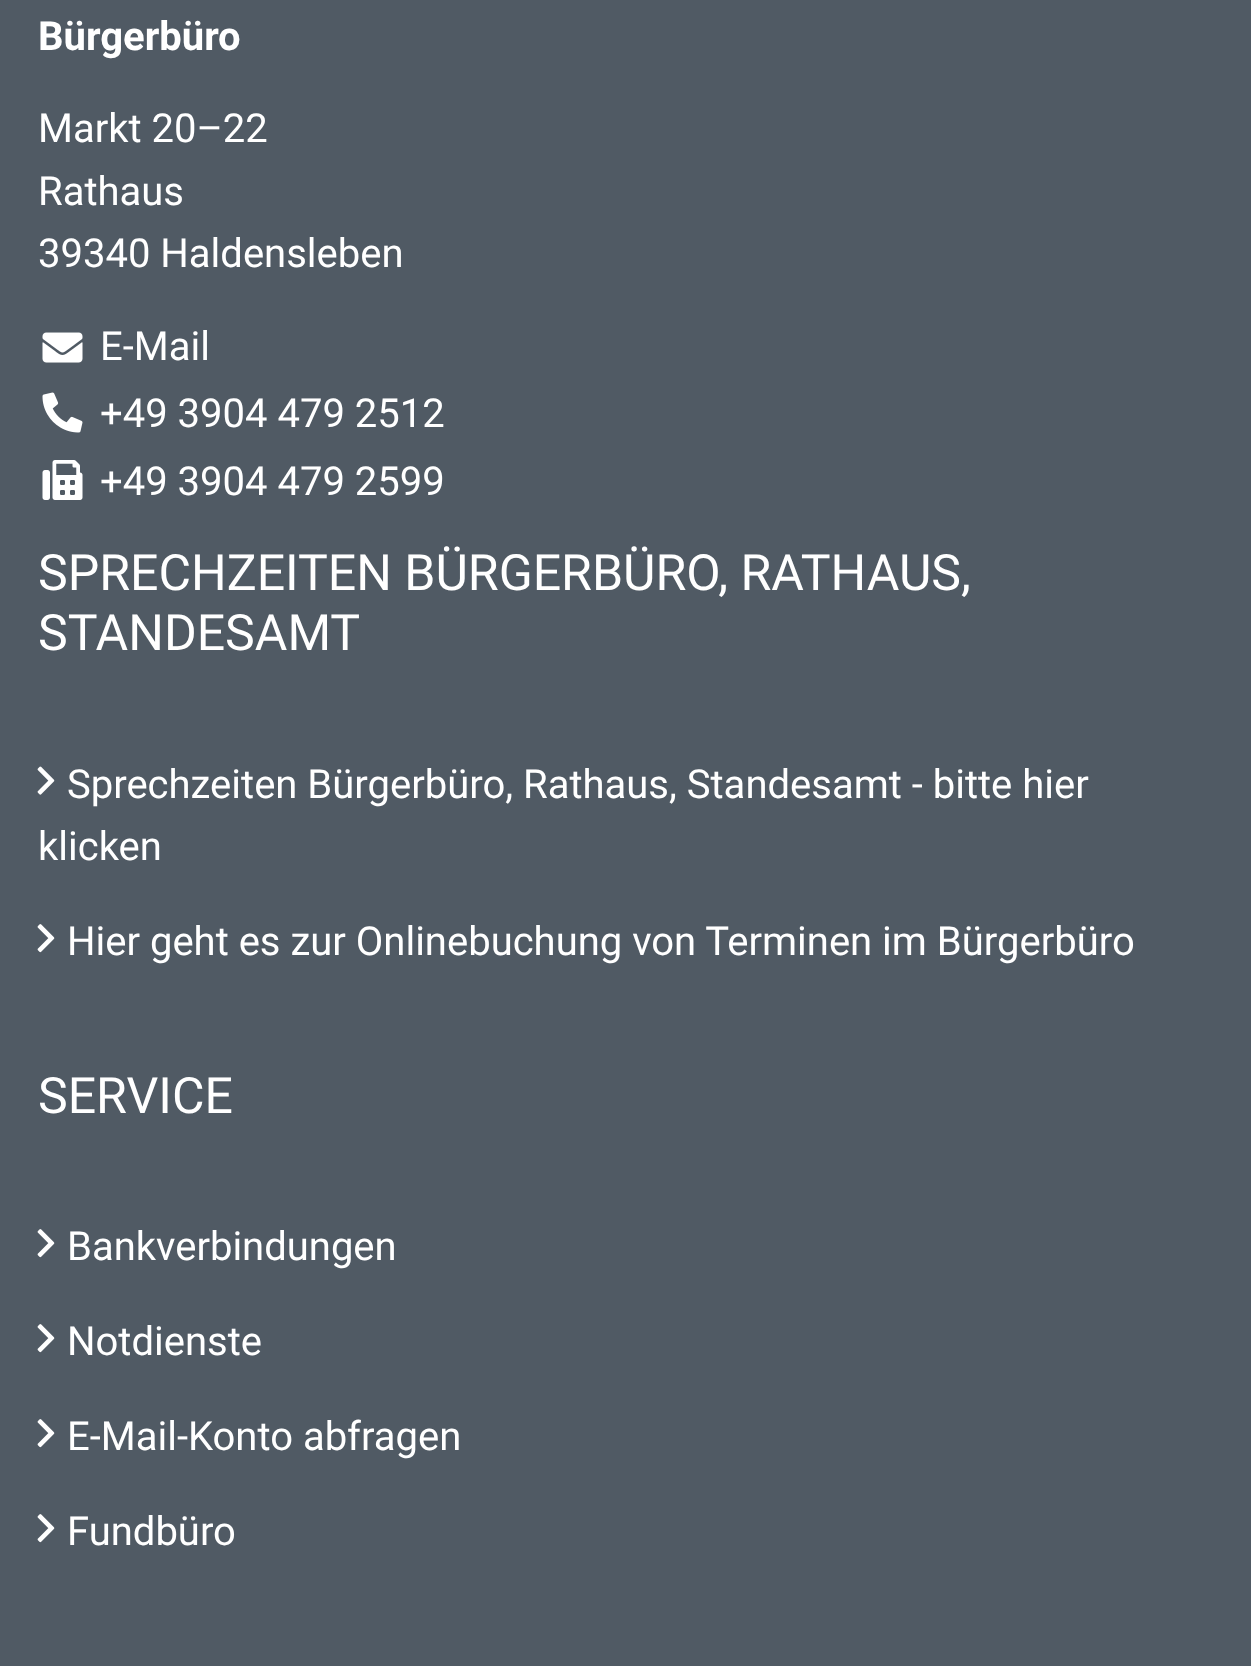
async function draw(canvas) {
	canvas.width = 1251;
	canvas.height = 1666;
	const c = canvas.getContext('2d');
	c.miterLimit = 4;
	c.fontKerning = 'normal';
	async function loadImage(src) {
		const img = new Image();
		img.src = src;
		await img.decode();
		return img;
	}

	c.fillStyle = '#505a64';
	c.fillRect(0, 0, 1251, 1666);
	c.font = 'bold 40px Roboto';
	c.fillStyle = '#fff';
	c.fillText('Bürgerbüro', 38, 50);
	c.font = '40px Roboto';
	for (const [text, x, y] of [
		['Markt 20–22', 38, 142],
		['Rathaus', 38, 205],
		['39340 Haldensleben', 38, 267],
	]) {
		c.fillText(text, x, y);
	}
	c.drawImage(await loadImage('img1.png'), 42, 332, 41, 31);
	c.fillText('E-Mail', 100, 360);
	c.drawImage(await loadImage('img2.png'), 42, 392, 41, 41);
	c.fillText('+49 3904 479 2512', 100, 427);
	c.drawImage(await loadImage('img3.png'), 42, 460, 41, 40);
	c.fillText('+49 3904 479 2599', 100, 495);
	c.font = '50px Roboto';
	c.fillText('SPRECHZEITEN BÜRGERBÜRO, RATHAUS,', 38, 590);
	c.fillText('STANDESAMT', 38, 650);
	c.drawImage(await loadImage('img4.png'), 37, 766, 18, 29);
	c.font = '40px Roboto';
	c.fillText('Sprechzeiten Bürgerbüro, Rathaus, Standesamt - bitte hier', 67, 798);
	c.fillText('klicken', 38, 860);
	c.drawImage(await loadImage('img5.png'), 37, 924, 18, 29);
	c.fillText('Hier geht es zur Onlinebuchung von Terminen im Bürgerbüro', 67, 955);
	c.font = '50px Roboto';
	c.fillText('SERVICE', 38, 1113);
	c.drawImage(await loadImage('img5.png'), 37, 1229, 18, 29);
	c.font = '40px Roboto';
	c.fillText('Bankverbindungen', 67, 1260);
	c.drawImage(await loadImage('img5.png'), 37, 1324, 18, 29);
	c.fillText('Notdienste', 67, 1355);
	c.drawImage(await loadImage('img5.png'), 37, 1419, 18, 29);
	c.fillText('E-Mail-Konto abfragen', 67, 1450);
	c.drawImage(await loadImage('img5.png'), 37, 1514, 18, 29);
	c.fillText('Fundbüro', 67, 1545);
}

draw(document.querySelector('canvas'));
